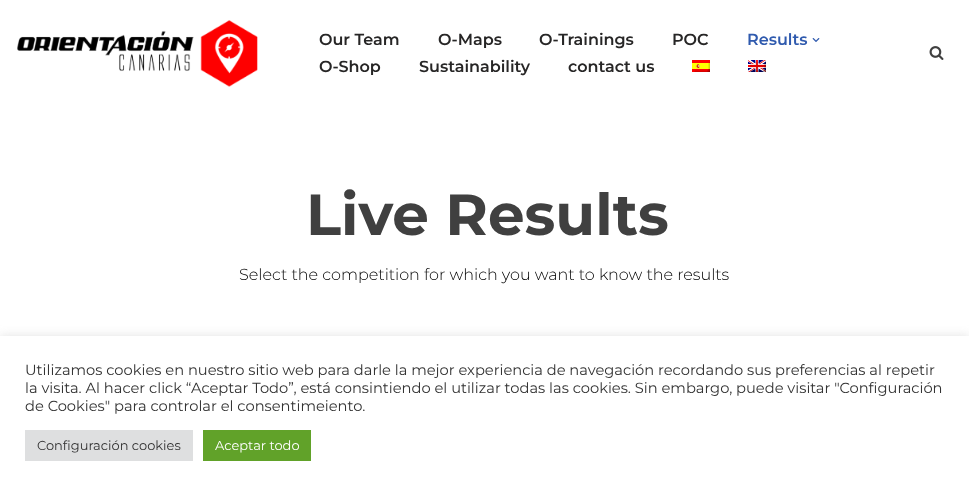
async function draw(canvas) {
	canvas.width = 969;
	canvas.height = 491;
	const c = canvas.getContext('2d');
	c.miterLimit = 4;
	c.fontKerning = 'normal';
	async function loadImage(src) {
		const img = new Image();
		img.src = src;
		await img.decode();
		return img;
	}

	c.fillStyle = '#fff';
	c.fillRect(0, 0, 969, 491);
	c.drawImage(await loadImage('img1.png'), 17, 20, 241, 67);
	c.font = '600 16px Montserrat';
	c.fillStyle = '#272626';
	for (const [text, x, y] of [
		['Our Team', 319, 45],
		['O-Maps', 438, 45],
		['O-Trainings', 539, 45],
		['POC', 672, 45],
	]) {
		c.fillText(text, x, y);
	}
	c.fillStyle = '#2f5aae';
	c.fillText('Results', 747, 45);
	c.drawImage(await loadImage('img2.png'), 812, 38, 8, 4);
	c.fillStyle = '#272626';
	for (const [text, x, y] of [
		['O-Shop', 319, 72],
		['Sustainability', 419, 72],
		['contact us', 568, 72],
	]) {
		c.fillText(text, x, y);
	}
	c.drawImage(await loadImage('img3.png'), 692, 60, 18, 12);
	c.drawImage(await loadImage('img4.png'), 748, 60, 18, 12);
	c.drawImage(await loadImage('img5.png'), 929, 46, 15, 14);
	c.font = 'bold 58px Montserrat';
	c.fillStyle = '#404040';
	c.fillText('Live Results', 306, 235);
	c.font = '300 16px Montserrat';
	c.fillStyle = '#000';
	c.fillText('Select the competition for which you want to know the results', 239, 280);
	c.fillStyle = '#acabab4d';
	c.filter = 'blur(5px)';
	c.beginPath();
	c.rect(0, 335, 969, 155);
	c.fill();
	c.filter = 'none';
	c.fillStyle = '#fff';
	c.fillRect(0, 336, 969, 155);
	c.font = '14.67px Montserrat';
	c.fillStyle = '#333';
	for (const [text, x, y] of [
		['Utilizamos cookies en nuestro sitio web para darle la mejor experiencia de navegación recordando sus preferencias al repetir', 25, 375],
		['la visita. Al hacer click “Aceptar Todo”, está consintiendo el utilizar todas las cookies. Sin embargo, puede visitar "Configuración', 25, 393],
		['de Cookies" para controlar el consentimeiento.', 25, 411],
	]) {
		c.fillText(text, x, y);
	}
	c.fillStyle = '#dedfe0';
	c.fillRect(25, 430, 168, 31);
	c.font = '13px Montserrat';
	c.fillStyle = '#333';
	c.fillText('Configuración cookies', 37, 450);
	c.fillStyle = '#61a229';
	c.fillRect(203, 430, 108, 31);
	c.fillStyle = '#fff';
	c.fillText('Aceptar todo', 215, 450);
}

draw(document.querySelector('canvas'));
